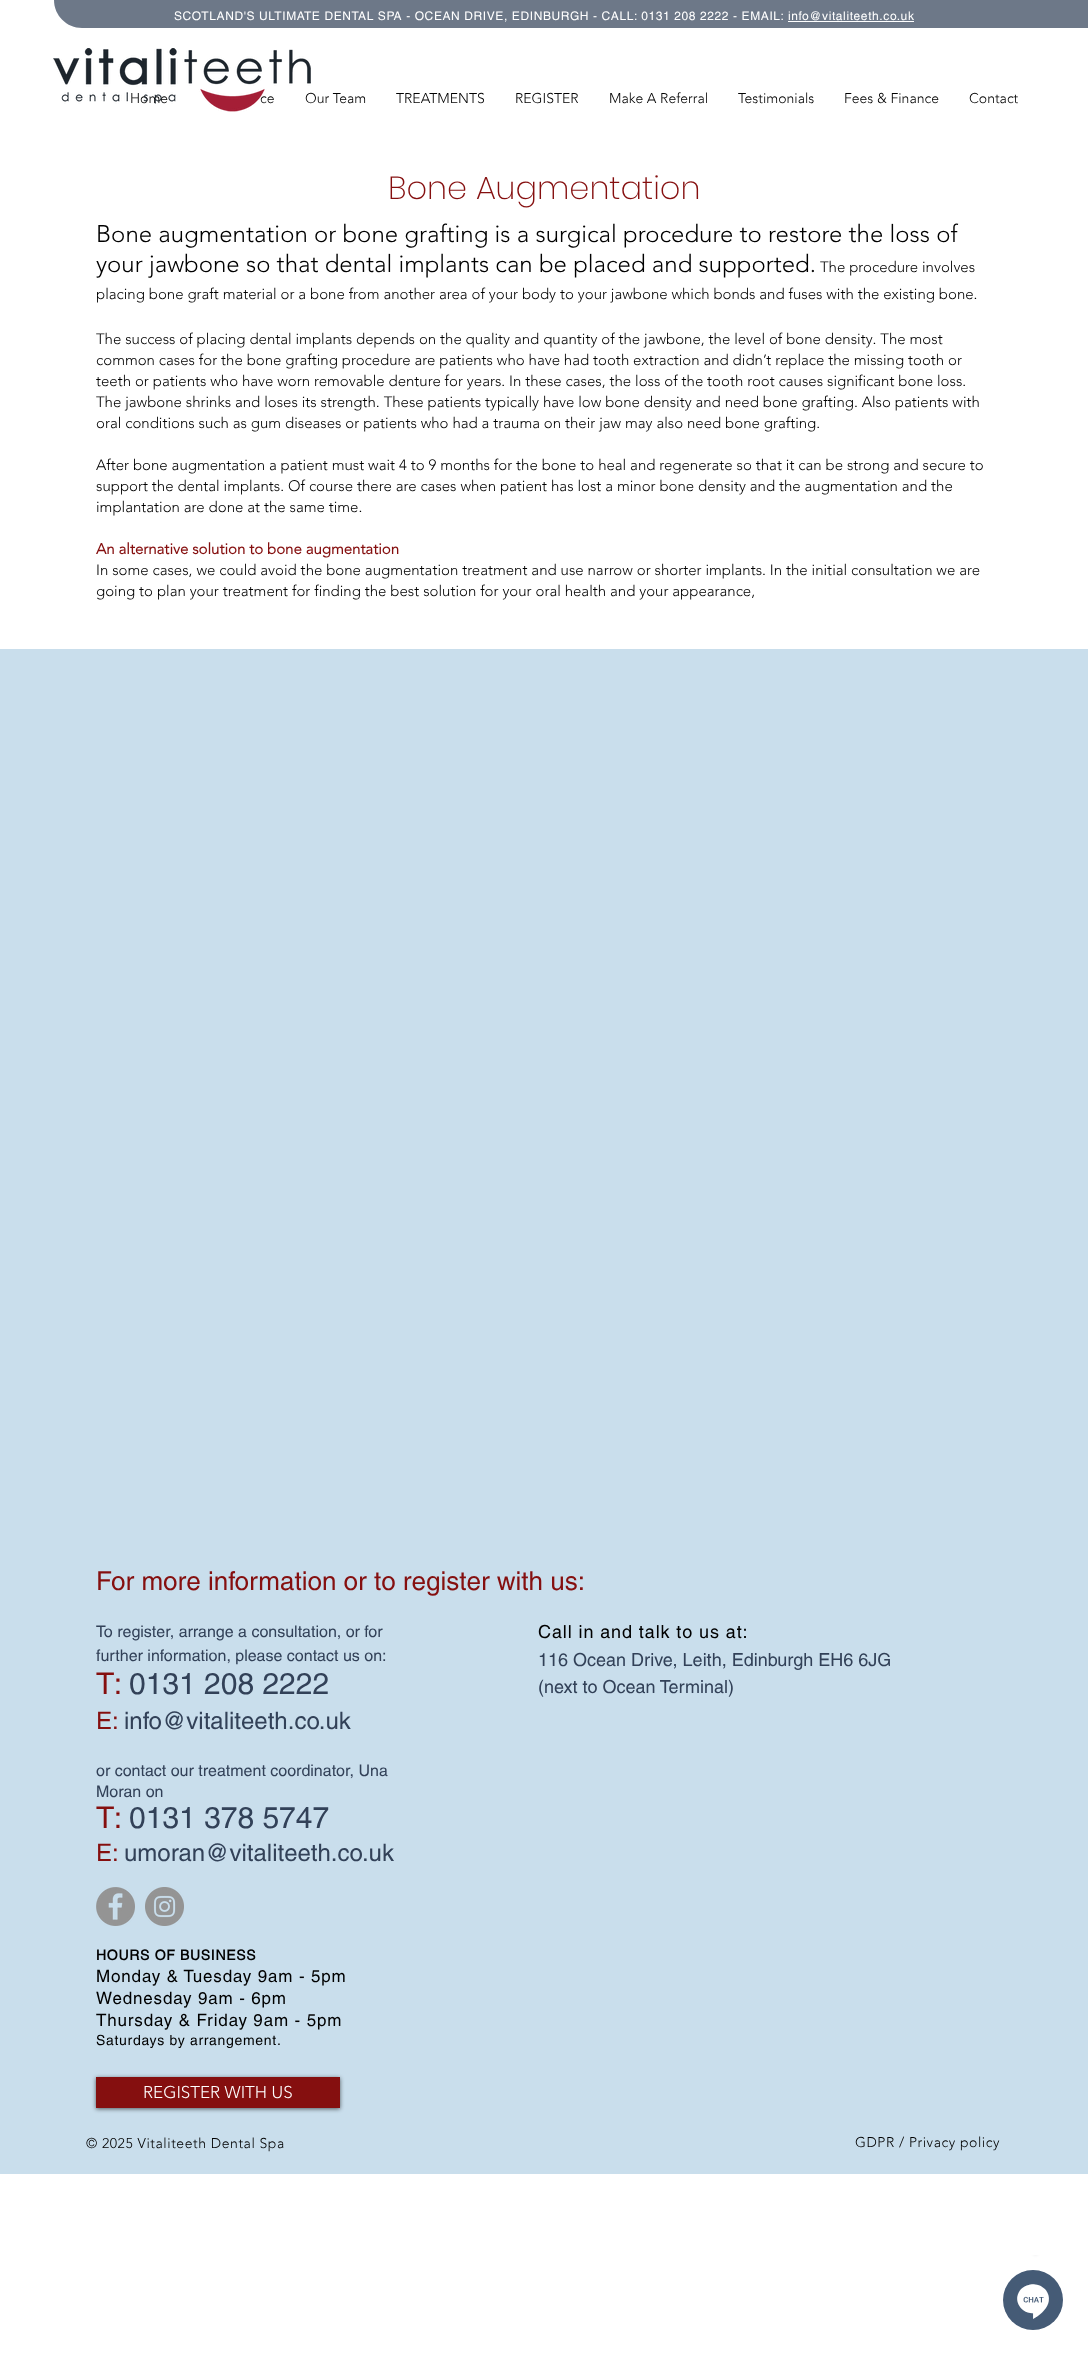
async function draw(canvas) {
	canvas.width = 1088;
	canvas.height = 2355;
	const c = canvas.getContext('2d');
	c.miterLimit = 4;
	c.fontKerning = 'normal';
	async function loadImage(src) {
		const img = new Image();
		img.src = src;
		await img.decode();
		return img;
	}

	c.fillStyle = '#fff';
	c.fillRect(0, 0, 1088, 2355);
	c.fillStyle = '#6d7888';
	c.beginPath();
	c.moveTo(54, 0);
	c.lineTo(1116, 0);
	c.lineTo(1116, 28);
	c.lineTo(82, 28);
	c.bezierCurveTo(66.5, 28, 54, 15.5, 54, 0);
	c.closePath();
	c.fill();
	c.letterSpacing = '0.6px';
	c.font = '12px helvetica';
	c.fillStyle = '#fff';
	c.fillText('SCOTLAND\'S ULTIMATE DENTAL SPA - OCEAN DRIVE, EDINBURGH - CALL: 0131 208 2222 - EMAIL: info@vitaliteeth.co.uk', 174, 20);
	c.fillRect(788, 21, 126, 1);
	c.letterSpacing = '0px';
	c.font = '300 14px "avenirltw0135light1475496"';
	c.fillStyle = '#000';
	for (const [text, x, y] of [
		['Home', 130, 103],
		['ce', 260, 103],
		['Our Team', 305, 103],
		['TREATMENTS', 396, 103],
		['REGISTER', 515, 103],
		['Make A Referral', 609, 103],
		['Testimonials', 738, 103],
		['Fees & Finance', 844, 103],
		['Contact', 969, 103],
	]) {
		c.fillText(text, x, y);
	}
	c.drawImage(await loadImage('img1.png'), 53, 48, 258, 64);
	c.font = '200 32px Poppins';
	c.fillStyle = '#850f0f';
	c.fillText('Bone Augmentation', 388, 199);
	c.font = '300 24px "avenirltw0135light1475496"';
	c.fillStyle = '#000';
	c.fillText('Bone augmentation or bone grafting is a surgical procedure to restore the loss of', 96, 242);
	c.fillText('your jawbone so that dental implants can be placed and supported.', 96, 272);
	c.font = '300 15px "avenirltw0135light1475496"';
	for (const [text, x, y] of [
		['The procedure involves', 820, 272],
		['placing bone graft material or a bone from another area of your body to your jawbone which bonds and fuses with the existing bone.', 96, 299],
		['The success of placing dental implants depends on the quality and quantity of the jawbone, the level of bone density. The most', 96, 344],
		['common cases for the bone grafting procedure are patients who have had tooth extraction and didn’t replace the missing tooth or', 96, 365],
		['teeth or patients who have worn removable denture for years. In these cases, the loss of the tooth root causes significant bone loss.', 96, 386],
		['The jawbone shrinks and loses its strength. These patients typically have low bone density and need bone grafting. Also patients with', 96, 407],
		['oral conditions such as gum diseases or patients who had a trauma on their jaw may also need bone grafting.', 96, 428],
		['After bone augmentation a patient must wait 4 to 9 months for the bone to heal and regenerate so that it can be strong and secure to', 96, 470],
		['support the dental implants. Of course there are cases when patient has lost a minor bone density and the augmentation and the', 96, 491],
		['implantation are done at the same time.', 96, 512],
	]) {
		c.fillText(text, x, y);
	}
	c.font = 'bold 15px "avenirltw0135light1475496"';
	c.fillStyle = '#850f0f';
	c.fillText('An alternative solution to bone augmentation', 96, 554);
	c.font = '300 15px "avenirltw0135light1475496"';
	c.fillStyle = '#000';
	c.fillText('In some cases, we could avoid the bone augmentation treatment and use narrow or shorter implants. In the initial consultation we are', 96, 575);
	c.fillText('going to plan your treatment for finding the best solution for your oral health and your appearance,', 96, 596);
	c.fillStyle = '#c9deec';
	c.fillRect(0, 649, 1088, 1525);
	c.font = '26px helvetica';
	c.fillStyle = '#850f0f';
	c.fillText('For more information or to register with us:', 96, 1590);
	c.font = '16px helvetica';
	c.fillStyle = '#324158';
	c.fillText('To register, arrange a consultation, or for', 96, 1637);
	c.fillText('further information, please contact us on:', 96, 1661);
	c.font = '30px helvetica';
	c.fillStyle = '#850f0f';
	c.fillText('T:', 96, 1694);
	c.fillStyle = '#324158';
	c.fillText('0131 208 2222', 129, 1694);
	c.font = '24px helvetica';
	c.fillStyle = '#850f0f';
	c.fillText('E:', 96, 1729);
	c.fillStyle = '#324158';
	c.fillText('info@vitaliteeth.co.uk', 124, 1729);
	c.font = '16px helvetica';
	c.fillText('or contact our treatment coordinator, Una', 96, 1776);
	c.fillText('Moran on', 96, 1797);
	c.font = '30px helvetica';
	c.fillStyle = '#850f0f';
	c.fillText('T:', 96, 1828);
	c.fillStyle = '#324158';
	c.fillText('0131 378 5747', 129, 1828);
	c.font = '24px helvetica';
	c.fillStyle = '#850f0f';
	c.fillText('E:', 96, 1861);
	c.fillStyle = '#324158';
	c.fillText('umoran@vitaliteeth.co.uk', 124, 1861);
	c.letterSpacing = '0.9px';
	c.font = '18px helvetica';
	c.fillStyle = '#000';
	c.fillText('Call in and talk to us at:', 538, 1638);
	c.letterSpacing = '0px';
	c.fillStyle = '#324158';
	c.fillText('116 Ocean Drive, Leith, Edinburgh EH6 6JG', 538, 1666);
	c.fillText('(next to Ocean Terminal)', 538, 1693);
	c.drawImage(await loadImage('img2.png'), 96, 1887, 39, 39);
	c.drawImage(await loadImage('img3.png'), 145, 1887, 39, 39);
	c.letterSpacing = '0.7px';
	c.font = 'bold 14px helvetica';
	c.fillStyle = '#000';
	c.fillText('HOURS OF BUSINESS', 96, 1960);
	c.letterSpacing = '0.85px';
	c.font = '17px helvetica';
	for (const [text, x, y] of [
		['Monday & Tuesday 9am - 5pm', 96, 1982],
		['Wednesday 9am - 6pm', 96, 2004],
		['Thursday & Friday 9am - 5pm', 96, 2026],
	]) {
		c.fillText(text, x, y);
	}
	c.letterSpacing = '0.7px';
	c.font = '14px helvetica';
	c.fillText('Saturdays by arrangement.', 96, 2045);
	c.fillStyle = '#00000099';
	c.filter = 'blur(2px)';
	c.beginPath();
	c.rect(96, 2078, 244, 31);
	c.fill();
	c.filter = 'none';
	c.fillStyle = '#850f0f';
	c.fillRect(96, 2077, 244, 31);
	c.letterSpacing = '0px';
	c.font = '300 17px "avenirltw0135light1475496"';
	c.fillStyle = '#fff';
	c.fillText('REGISTER WITH US', 143, 2098);
	c.letterSpacing = '0.55px';
	c.font = '300 14px "avenirltw0135light1475496"';
	c.fillStyle = '#000';
	c.fillText('© 2025 Vitaliteeth Dental Spa', 86, 2148);
	c.fillText('GDPR / Privacy policy', 855, 2147);
	c.drawImage(await loadImage('img4.png'), 1003, 2255, 60, 75);
}

draw(document.querySelector('canvas'));
